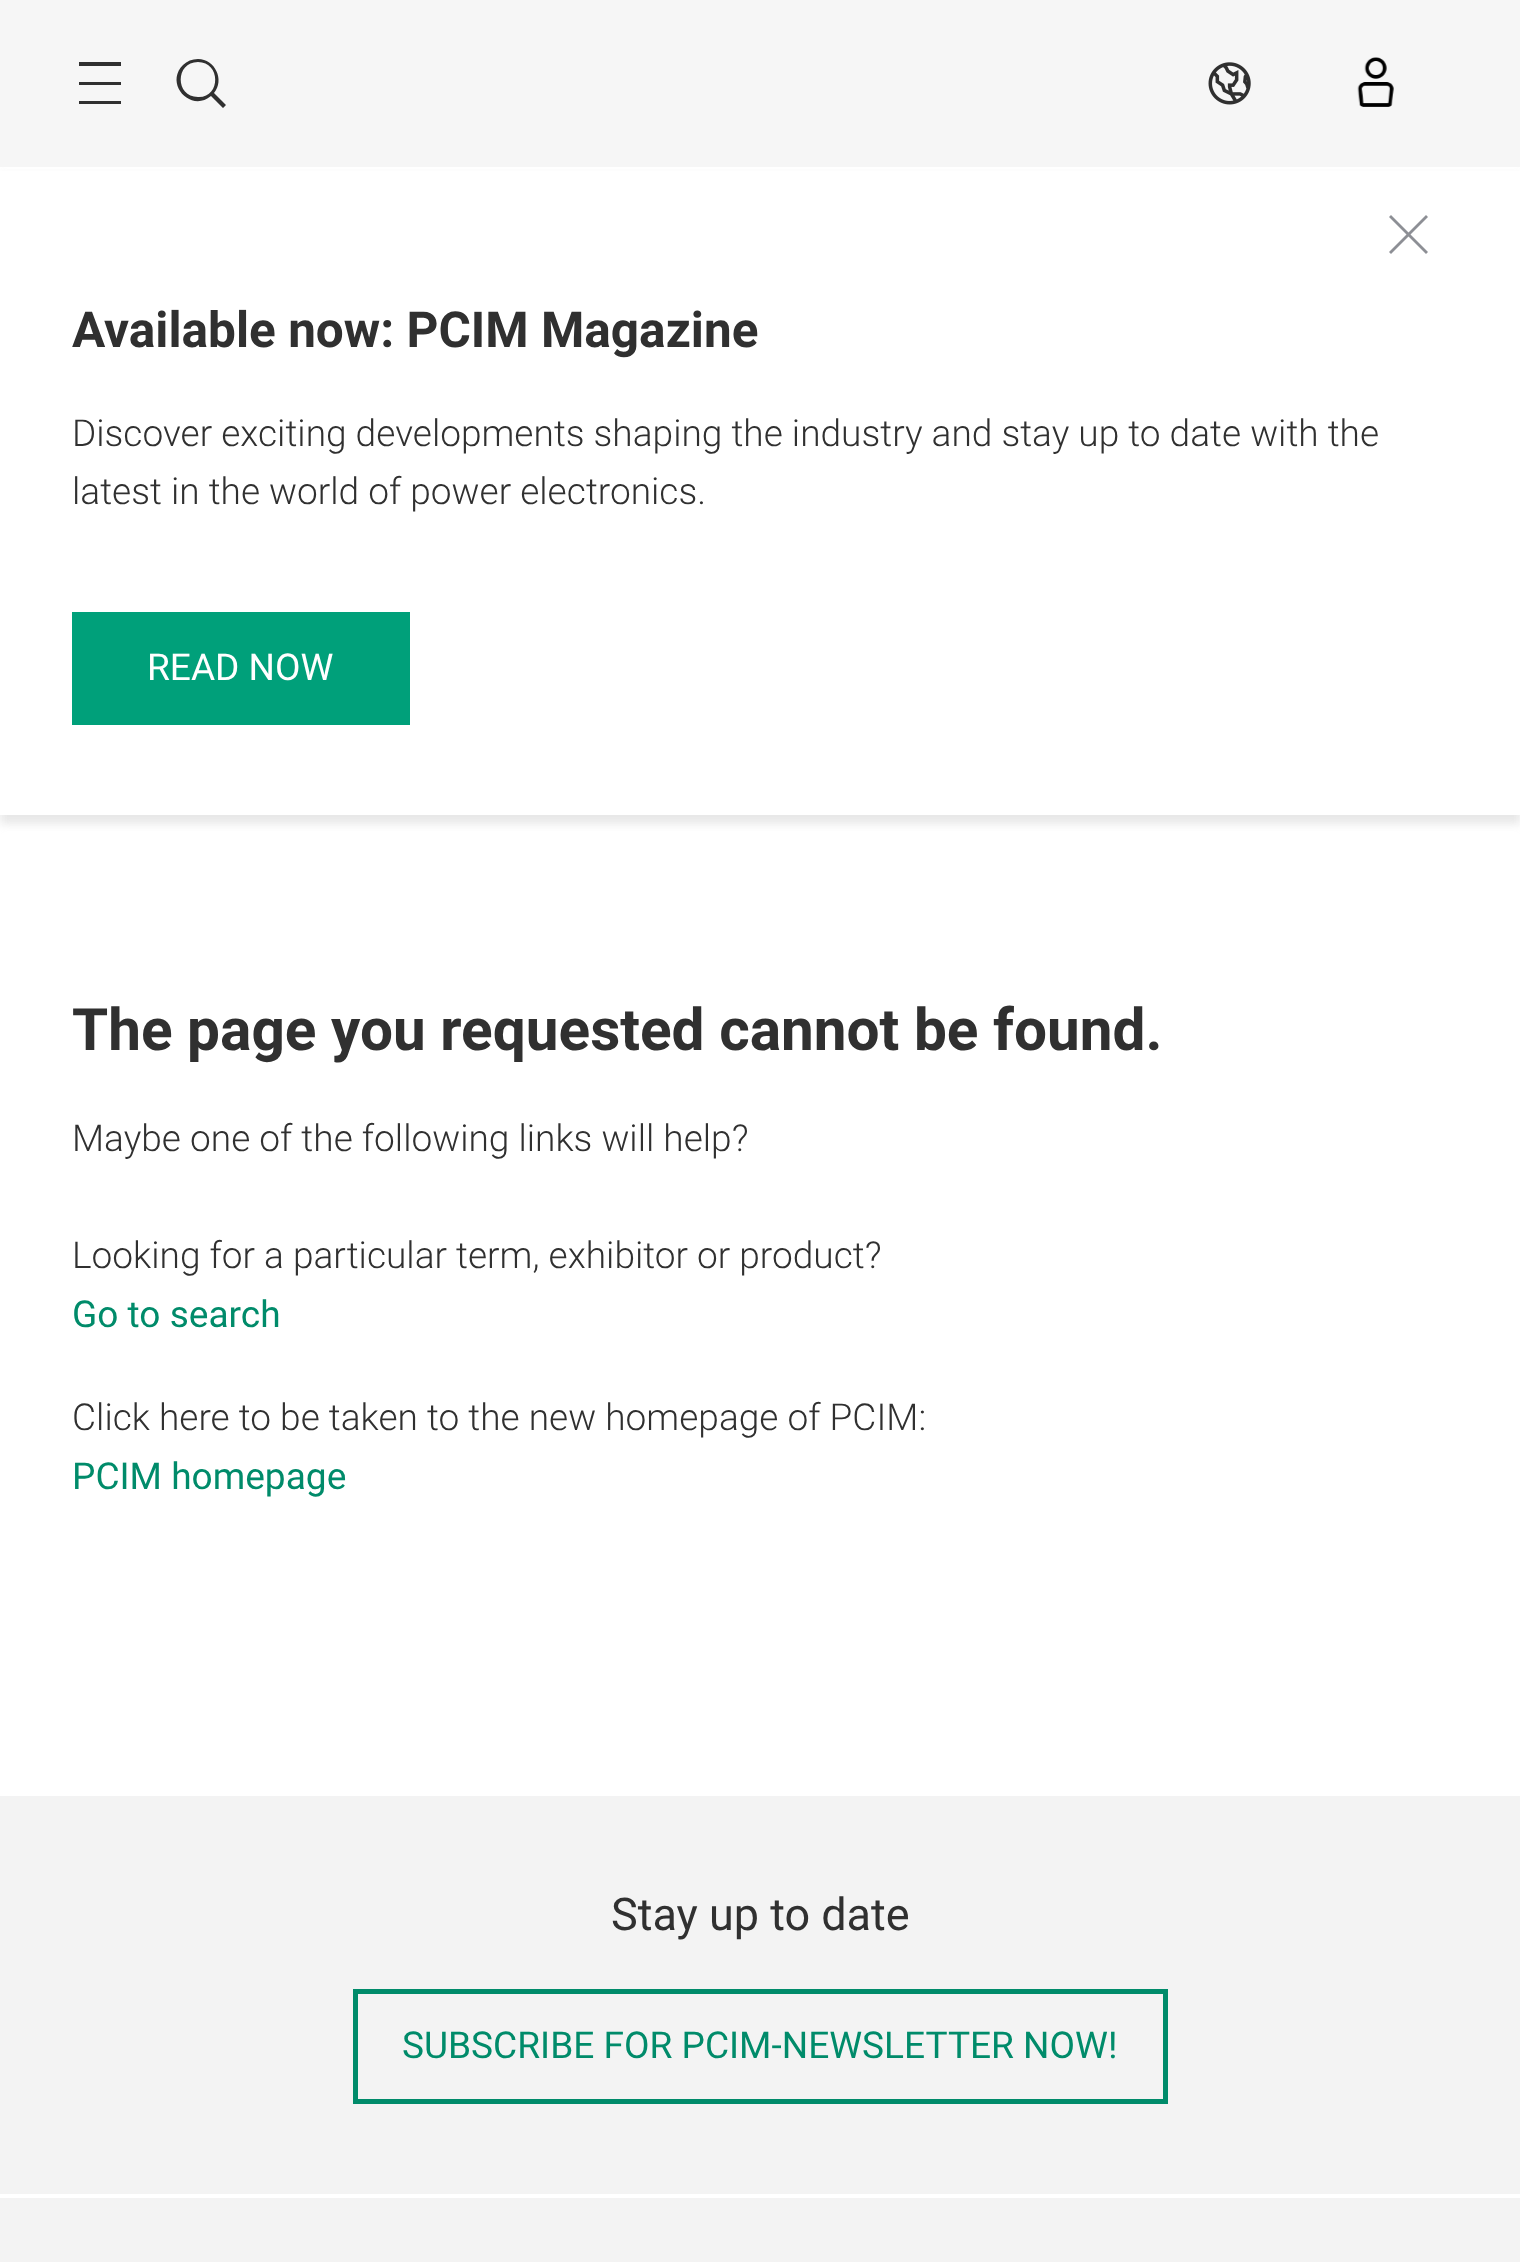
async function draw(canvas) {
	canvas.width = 1520;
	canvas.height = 2262;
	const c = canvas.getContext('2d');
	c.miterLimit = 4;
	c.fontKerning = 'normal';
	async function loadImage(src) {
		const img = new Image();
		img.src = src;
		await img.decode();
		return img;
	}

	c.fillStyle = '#fff';
	c.fillRect(0, 0, 1520, 2262);
	c.fillStyle = '#d1d1d180';
	c.filter = 'blur(4.5px)';
	c.beginPath();
	c.rect(0, 176, 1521, 648);
	c.fill();
	c.filter = 'none';
	c.fillStyle = '#f6f6f6';
	c.fillRect(0, 0, 1520, 167);
	c.fillStyle = '#303030';
	c.beginPath();
	c.moveTo(121, 82);
	c.lineTo(79, 82);
	c.lineTo(79, 85);
	c.lineTo(121, 85);
	c.closePath();
	c.moveTo(121, 101);
	c.lineTo(79, 101);
	c.lineTo(79, 104);
	c.lineTo(121, 104);
	c.closePath();
	c.moveTo(121, 62);
	c.lineTo(79, 62);
	c.lineTo(79, 66);
	c.lineTo(121, 66);
	c.closePath();
	c.fill();
	c.beginPath();
	c.moveTo(198, 62);
	c.bezierCurveTo(221, 62, 221, 98, 198, 97);
	c.bezierCurveTo(175, 97, 175, 62, 198, 62);
	c.closePath();
	c.moveTo(198, 59);
	c.bezierCurveTo(192, 59, 187, 61, 183, 65);
	c.bezierCurveTo(164, 84, 191, 113, 211, 96);
	c.lineTo(223, 108);
	c.lineTo(226, 105);
	c.lineTo(214, 93);
	c.bezierCurveTo(225, 80, 215, 59, 198, 59);
	c.closePath();
	c.fill();
	c.drawImage(await loadImage('img1.png'), 1208, 62, 43, 43);
	c.drawImage(await loadImage('img2.png'), 1357, 57, 37, 50);
	c.fillStyle = '#fff';
	c.fillRect(0, 171, 1520, 644);
	c.font = 'bold 49.5px Roboto';
	c.fillStyle = '#303030';
	c.fillText('Available now: PCIM Magazine', 72, 347);
	c.font = '300 37.1px Roboto';
	c.fillText('Discover exciting developments shaping the industry and stay up to date with the', 72, 446);
	c.fillText('latest in the world of power electronics.', 72, 504);
	c.fillStyle = '#8d8f95';
	c.beginPath();
	c.moveTo(1426, 254);
	c.lineTo(1428, 252);
	c.lineTo(1410.5, 234.5);
	c.lineTo(1428, 217);
	c.lineTo(1426, 215);
	c.lineTo(1408.5, 232.5);
	c.lineTo(1391, 215);
	c.lineTo(1389, 217);
	c.lineTo(1406.5, 234.5);
	c.lineTo(1389, 252);
	c.lineTo(1391, 254);
	c.lineTo(1408.5, 236.5);
	c.closePath();
	c.fill();
	c.fillStyle = '#00a07a';
	c.fillRect(72, 612, 338, 113);
	c.font = '37.1px Roboto';
	c.fillStyle = '#fff';
	c.fillText('READ NOW', 147, 680);
	c.font = 'bold 58.5px Roboto';
	c.fillStyle = '#303030';
	c.fillText('The page you requested cannot be found.', 72, 1050);
	c.font = '300 37.1px Roboto';
	c.fillText('Maybe one of the following links will help?', 72, 1151);
	c.fillText('Looking for a particular term, exhibitor or product?', 72, 1268);
	c.font = '37.1px Roboto';
	c.fillStyle = '#008b6a';
	c.fillText('Go to search', 72, 1327);
	c.font = '300 37.1px Roboto';
	c.fillStyle = '#303030';
	c.fillText('Click here to be taken to the new homepage of PCIM:', 72, 1430);
	c.font = '37.1px Roboto';
	c.fillStyle = '#008b6a';
	c.fillText('PCIM homepage', 72, 1489);
	c.fillStyle = '#f3f3f3';
	c.fillRect(0, 1796, 1520, 398);
	c.font = '45px Roboto';
	c.fillStyle = '#303030';
	c.fillText('Stay up to date', 611, 1930);
	c.strokeStyle = '#008b6a';
	c.lineWidth = 5;
	c.strokeRect(355.5, 1991.5, 810, 110);
	c.font = '37.1px Roboto';
	c.fillStyle = '#008b6a';
	c.fillText('SUBSCRIBE FOR PCIM-NEWSLETTER NOW!', 402, 2058);
	c.fillStyle = '#f3f3f3';
	c.fillRect(0, 2198, 1520, 64);
}

draw(document.querySelector('canvas'));
